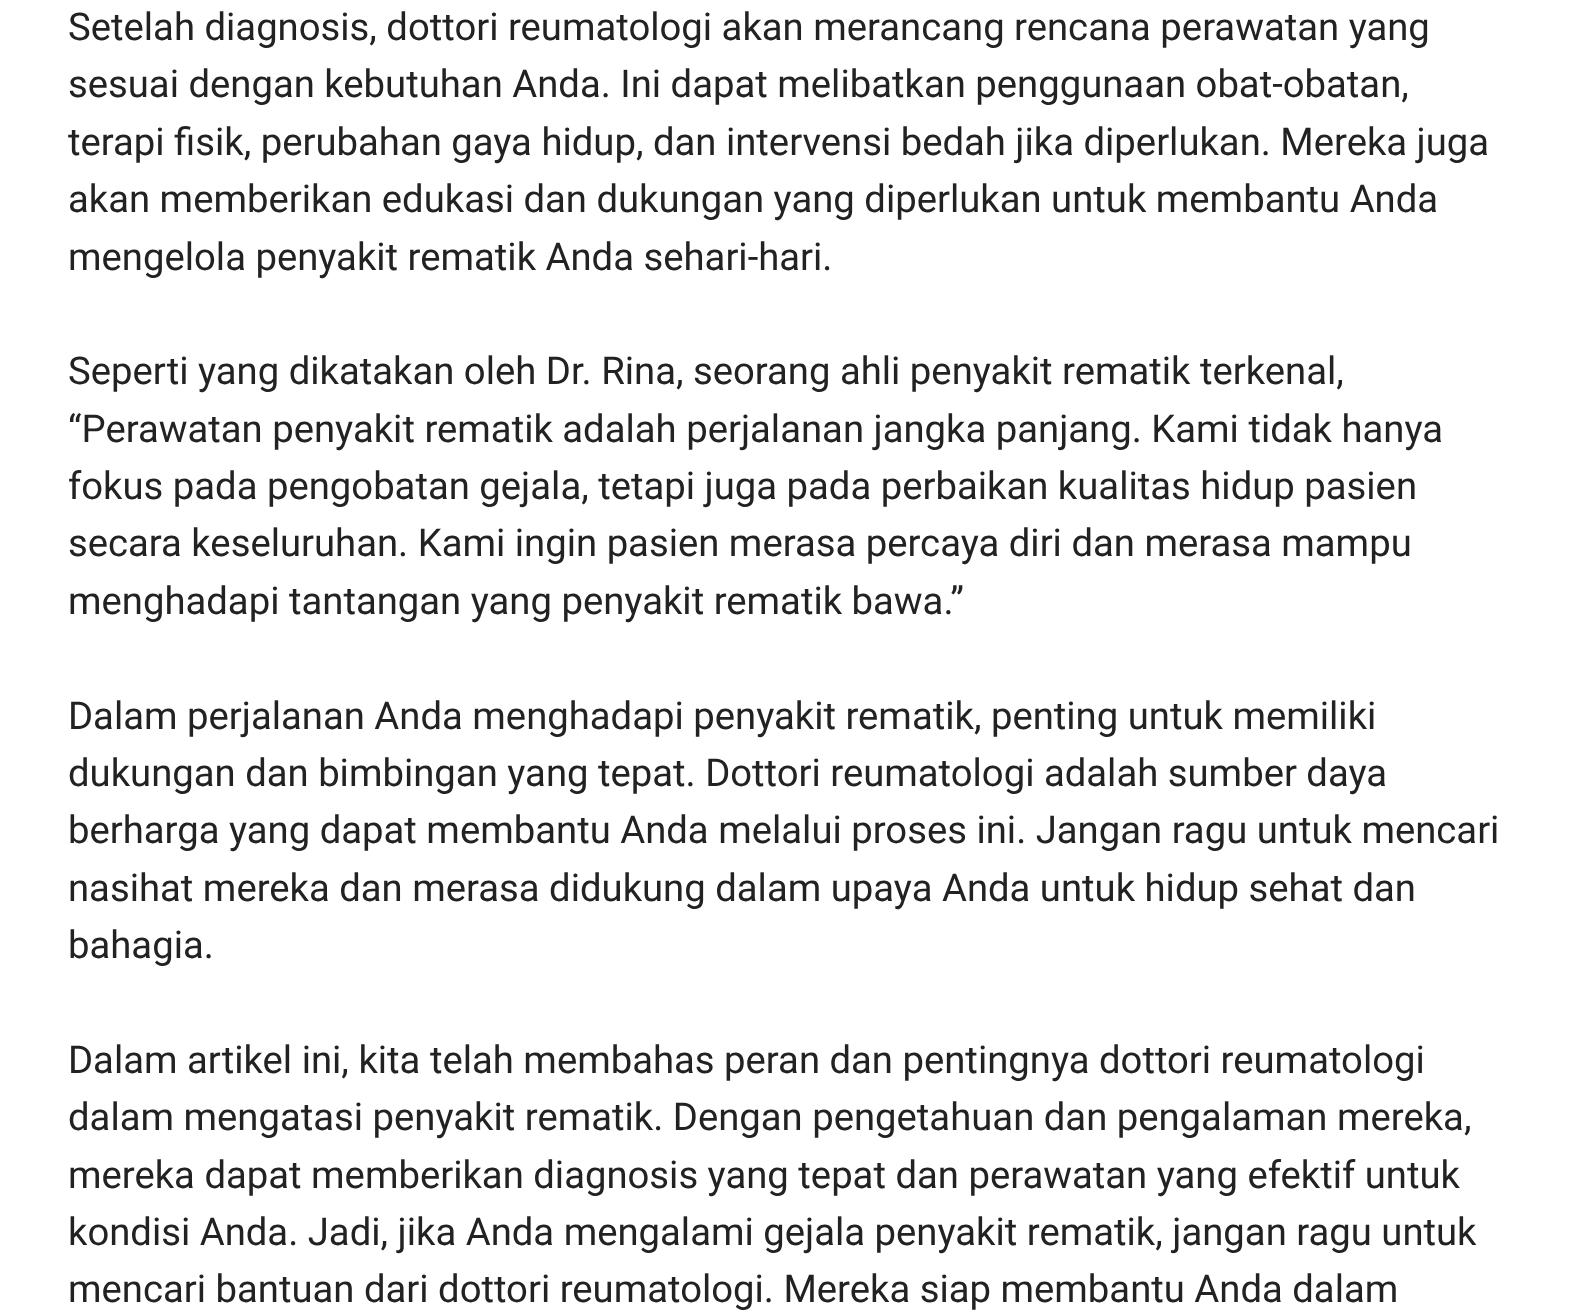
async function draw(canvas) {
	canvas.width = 1577;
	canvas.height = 1312;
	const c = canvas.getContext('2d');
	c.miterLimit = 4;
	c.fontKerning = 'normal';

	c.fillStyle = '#fff';
	c.fillRect(0, 0, 1577, 1312);
	c.font = '38.25px Roboto';
	c.fillStyle = '#222';
	for (const [text, x, y] of [
		['Setelah diagnosis, dottori reumatologi akan merancang rencana perawatan yang', 68, 40],
		['sesuai dengan kebutuhan Anda. Ini dapat melibatkan penggunaan obat-obatan,', 68, 97],
		['terapi fisik, perubahan gaya hidup, dan intervensi bedah jika diperlukan. Mereka juga', 68, 155],
		['akan memberikan edukasi dan dukungan yang diperlukan untuk membantu Anda', 68, 212],
		['mengelola penyakit rematik Anda sehari-hari.', 68, 270],
		['Seperti yang dikatakan oleh Dr. Rina, seorang ahli penyakit rematik terkenal,', 68, 384],
		['“Perawatan penyakit rematik adalah perjalanan jangka panjang. Kami tidak hanya', 68, 442],
		['fokus pada pengobatan gejala, tetapi juga pada perbaikan kualitas hidup pasien', 68, 499],
		['secara keseluruhan. Kami ingin pasien merasa percaya diri dan merasa mampu', 68, 556],
		['menghadapi tantangan yang penyakit rematik bawa.”', 68, 614],
		['Dalam perjalanan Anda menghadapi penyakit rematik, penting untuk memiliki', 68, 729],
		['dukungan dan bimbingan yang tepat. Dottori reumatologi adalah sumber daya', 68, 786],
		['berharga yang dapat membantu Anda melalui proses ini. Jangan ragu untuk mencari', 68, 843],
		['nasihat mereka dan merasa didukung dalam upaya Anda untuk hidup sehat dan', 68, 901],
		['bahagia.', 68, 958],
		['Dalam artikel ini, kita telah membahas peran dan pentingnya dottori reumatologi', 68, 1073],
		['dalam mengatasi penyakit rematik. Dengan pengetahuan dan pengalaman mereka,', 68, 1130],
		['mereka dapat memberikan diagnosis yang tepat dan perawatan yang efektif untuk', 68, 1188],
		['kondisi Anda. Jadi, jika Anda mengalami gejala penyakit rematik, jangan ragu untuk', 68, 1245],
		['mencari bantuan dari dottori reumatologi. Mereka siap membantu Anda dalam', 68, 1302],
	]) {
		c.fillText(text, x, y);
	}
}

draw(document.querySelector('canvas'));
